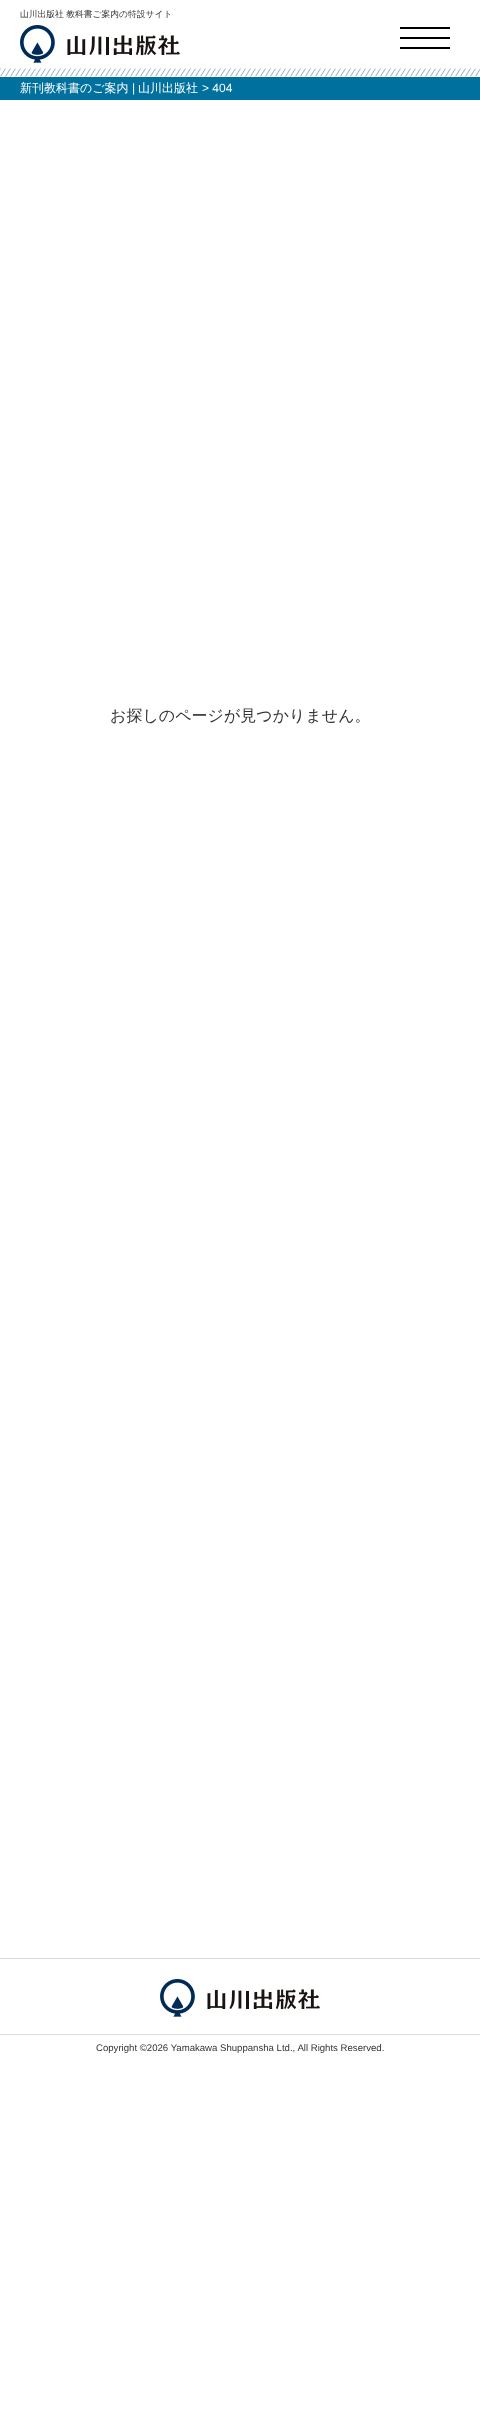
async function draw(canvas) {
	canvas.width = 480;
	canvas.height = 2413;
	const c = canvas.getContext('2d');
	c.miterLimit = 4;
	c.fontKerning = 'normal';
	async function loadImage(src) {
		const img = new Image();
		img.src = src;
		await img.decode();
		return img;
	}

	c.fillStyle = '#fff';
	c.fillRect(0, 0, 480, 2413);
	c.drawImage(await loadImage('img1.png'), 0, 68, 480, 9);
	c.font = '500 8.75px WenQuanYi Zen Hei';
	c.fillStyle = '#333';
	c.fillText('山川出版社 教科書ご案内の特設サイト', 20, 17);
	c.drawImage(await loadImage('img2.png'), 20, 25, 160, 38);
	for (const [x, y, w, h, color] of [
		[400, 37, 50, 2, '#000'],
		[400, 27, 50, 2, '#000'],
		[400, 47, 50, 2, '#000'],
		[0, 77, 480, 23, '#00709e'],
	]) {
		c.fillStyle = color;
		c.fillRect(x, y, w, h);
	}
	c.font = '500 12px WenQuanYi Zen Hei';
	c.fillStyle = '#fff';
	c.fillText('新刊教科書のご案内', 20, 92);
	c.font = '12px Liberation Sans';
	c.fillText('|', 132, 92);
	c.font = '500 12px WenQuanYi Zen Hei';
	c.fillText('山川出版社', 138, 92);
	c.font = '12px Liberation Sans';
	c.fillText('> 404', 202, 92);
	c.font = '500 16px WenQuanYi Zen Hei';
	c.fillStyle = '#333';
	c.fillText('お探しのページが見つかりません。', 110, 721);
	c.fillStyle = '#d9d9d9';
	c.fillRect(0, 1958, 480, 1);
	c.drawImage(await loadImage('img3.png'), 160, 1979, 160, 38);
	c.fillStyle = '#ddd';
	c.fillRect(0, 2034, 480, 1);
	c.font = '9.6px Liberation Sans';
	c.fillStyle = '#333';
	c.fillText('Copyright ©2026 Yamakawa Shuppansha Ltd., All Rights Reserved.', 96, 2051);
}

draw(document.querySelector('canvas'));
